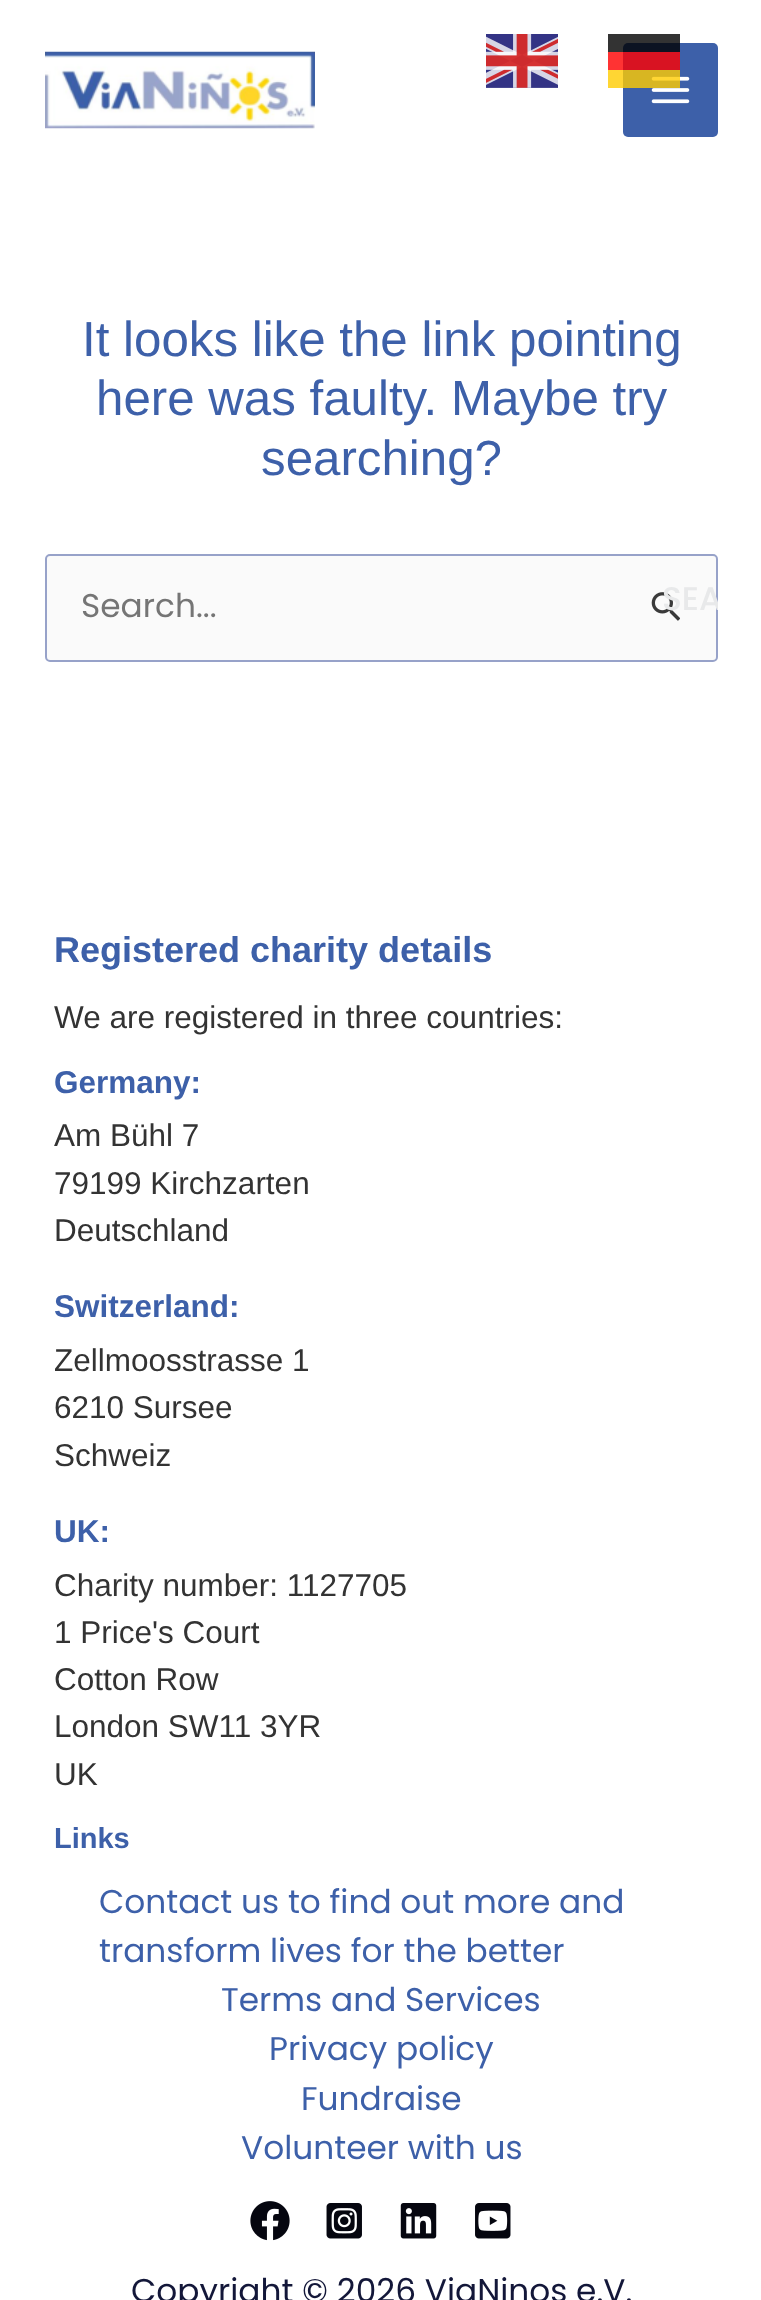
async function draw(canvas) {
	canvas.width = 761;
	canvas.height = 2300;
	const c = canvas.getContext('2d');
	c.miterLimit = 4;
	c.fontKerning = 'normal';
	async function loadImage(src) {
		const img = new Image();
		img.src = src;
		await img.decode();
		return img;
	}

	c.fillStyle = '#fff';
	c.fillRect(0, 0, 761, 2300);
	c.fillStyle = '#f33';
	c.fillRect(608, 52, 15, 18);
	c.drawImage(await loadImage('img1.png'), 486, 34, 72, 54);
	c.fillStyle = '#3d60a9';
	c.beginPath();
	c.roundRect(623, 43, 95, 94, 5);
	c.fill();
	c.fillStyle = '#000000cc';
	c.fillRect(608, 34, 72, 18);
	c.drawImage(await loadImage('img3.png'), 651, 76, 39, 28);
	c.fillStyle = '#ffcc00cc';
	c.fillRect(608, 70, 72, 18);
	c.drawImage(await loadImage('img2.png'), 45, 51, 270, 78);
	c.fillStyle = '#d81322';
	c.fillRect(623, 52, 57, 18);
	c.font = '49.25px Liberation Sans';
	c.fillStyle = '#3d60a9';
	for (const [text, x, y] of [
		['It looks like the link pointing', 82, 356],
		['here was faulty. Maybe try', 96, 415],
		['searching?', 261, 475],
	]) {
		c.fillText(text, x, y);
	}
	c.fillStyle = '#fafafa';
	c.beginPath();
	c.roundRect(46, 555, 671, 106, 4);
	c.fill();
	c.strokeStyle = '#97a2c9';
	c.lineWidth = 2;
	c.stroke();
	c.font = '32.8px Poppins';
	c.fillStyle = '#757575';
	c.fillText('Search...', 81, 617);
	c.drawImage(await loadImage('img4.png'), 651, 592, 29, 29);
	c.save();
	c.beginPath();
	c.roundRect(617, 554, 101, 92, 5);
	c.clip();
	c.font = '500 32.8px Poppins';
	c.fillStyle = '#e8e9ea';
	c.fillText('SEA', 662, 610);
	c.restore();
	c.font = 'bold 36px Liberation Sans';
	c.fillStyle = '#3d60a9';
	c.fillText('Registered charity details', 54, 962);
	c.font = '31.5px Liberation Sans';
	c.fillStyle = '#333';
	c.fillText('We are registered in three countries:', 54, 1028);
	c.font = 'bold 31.5px Liberation Sans';
	c.fillStyle = '#3d60a9';
	c.fillText('Germany:', 54, 1093);
	c.font = '31.5px Liberation Sans';
	c.fillStyle = '#333';
	for (const [text, x, y] of [
		['Am Bühl 7', 54, 1146],
		['79199 Kirchzarten', 54, 1194],
		['Deutschland', 54, 1241],
	]) {
		c.fillText(text, x, y);
	}
	c.font = 'bold 31.5px Liberation Sans';
	c.fillStyle = '#3d60a9';
	c.fillText('Switzerland:', 54, 1317);
	c.font = '31.5px Liberation Sans';
	c.fillStyle = '#333';
	for (const [text, x, y] of [
		['Zellmoosstrasse 1', 54, 1371],
		['6210 Sursee', 54, 1418],
		['Schweiz', 54, 1466],
	]) {
		c.fillText(text, x, y);
	}
	c.font = 'bold 31.5px Liberation Sans';
	c.fillStyle = '#3d60a9';
	c.fillText('UK:', 54, 1542);
	c.font = '31.5px Liberation Sans';
	c.fillStyle = '#333';
	for (const [text, x, y] of [
		['Charity number: 1127705', 54, 1596],
		['1 Price\'s Court', 54, 1643],
		['Cotton Row', 54, 1690],
		['London SW11 3YR', 54, 1737],
		['UK', 54, 1785],
	]) {
		c.fillText(text, x, y);
	}
	c.font = 'bold 29px Liberation Sans';
	c.fillStyle = '#3d60a9';
	c.fillText('Links', 54, 1848);
	c.font = '32.8px Poppins';
	for (const [text, x, y] of [
		['Contact us to find out more and', 99, 1913],
		['transform lives for the better', 99, 1962],
		['Terms and Services', 221, 2011],
		['Privacy policy', 269, 2060],
		['Fundraise', 301, 2110],
		['Volunteer with us', 241, 2159],
	]) {
		c.fillText(text, x, y);
	}
	c.drawImage(await loadImage('img5.png'), 250, 2201, 40, 40);
	c.drawImage(await loadImage('img6.png'), 326, 2203, 36, 36);
	c.drawImage(await loadImage('img7.png'), 400, 2203, 37, 36);
	c.drawImage(await loadImage('img8.png'), 475, 2203, 36, 36);
	c.fillStyle = '#131739';
	c.fillText('Copyright © 2026 ViaNinos e.V.', 131, 2302);
}

draw(document.querySelector('canvas'));
